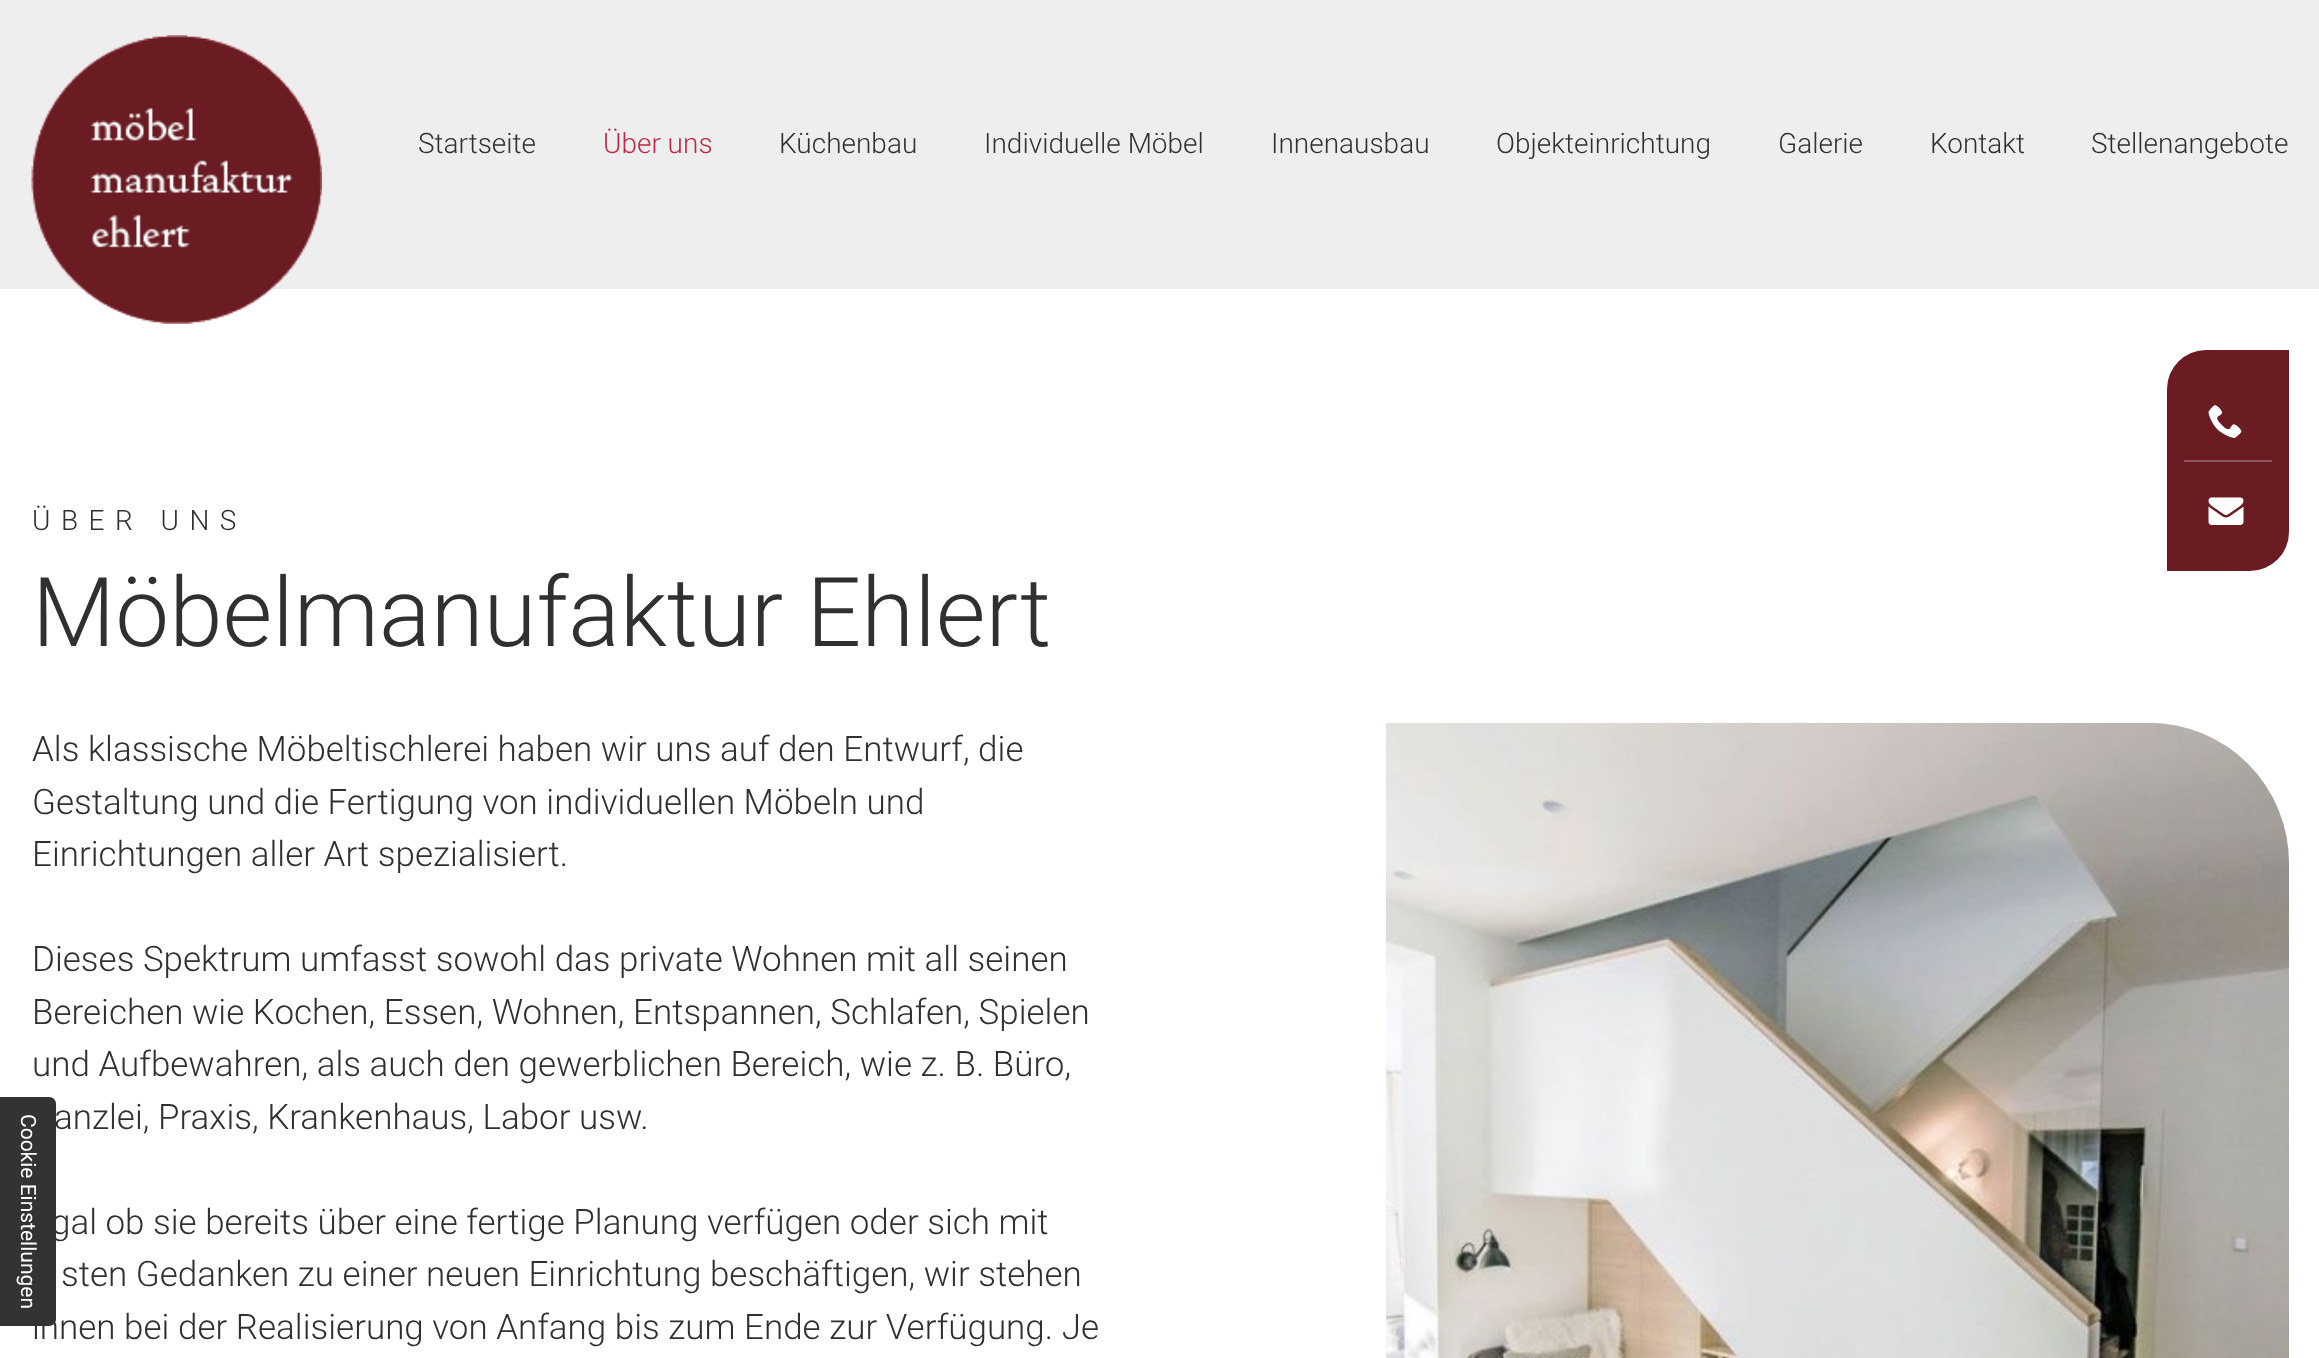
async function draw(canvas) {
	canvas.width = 2319;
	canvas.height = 1358;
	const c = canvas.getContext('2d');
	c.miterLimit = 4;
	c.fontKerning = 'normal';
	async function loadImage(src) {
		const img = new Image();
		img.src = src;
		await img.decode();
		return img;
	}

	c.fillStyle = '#fff';
	c.fillRect(0, 0, 2319, 1358);
	c.fillStyle = '#eee';
	c.fillRect(0, 0, 2319, 289);
	c.drawImage(await loadImage('img1.png'), 31, 35, 291, 289);
	c.font = '300 28px Roboto';
	c.fillStyle = '#303030';
	c.fillText('Startseite', 418, 153);
	c.fillStyle = '#be2844';
	c.fillText('Über uns', 603, 153);
	c.fillStyle = '#303030';
	for (const [text, x, y] of [
		['Küchenbau', 779, 153],
		['Individuelle Möbel', 984, 153],
		['Innenausbau', 1271, 153],
		['Objekteinrichtung', 1496, 153],
		['Galerie', 1778, 153],
		['Kontakt', 1930, 153],
		['Stellenangebote', 2091, 153],
	]) {
		c.fillText(text, x, y);
	}
	c.font = '300 35px Roboto';
	for (const [text, x, y] of [
		['anzlei, Praxis, Krankenhaus, Labor usw.', 54, 1129],
		['gal ob sie bereits über eine fertige Planung verfügen oder sich mit', 51, 1234],
		['ihnen bei der Realisierung von Anfang bis zum Ende zur Verfügung. Je', 32, 1339],
	]) {
		c.fillText(text, x, y);
	}
	c.fillStyle = '#333';
	c.beginPath();
	c.moveTo(56, 1104);
	c.lineTo(56, 1319);
	c.bezierCurveTo(56, 1323, 53, 1326, 49, 1326);
	c.lineTo(0, 1326);
	c.lineTo(0, 1097);
	c.lineTo(49, 1097);
	c.bezierCurveTo(53, 1097, 56, 1100, 56, 1104);
	c.closePath();
	c.fill();
	c.font = '21px Roboto';
	c.fillStyle = '#fff';
	c.save();
	c.translate(21, 1114);
	c.rotate(90 * Math.PI / 180);
	c.fillText('Cookie Einstellungen', 0, 0);
	c.restore();
	c.fillStyle = '#6b1c23';
	c.beginPath();
	c.roundRect(2167, 350, 122, 221, [39, 0, 39, 0]);
	c.fill();
	c.drawImage(await loadImage('img2.png'), 2208, 405, 34, 33);
	c.fillStyle = '#90555a';
	c.fillRect(2184, 460, 88, 2);
	c.drawImage(await loadImage('img3.png'), 2208, 497, 36, 28);
	c.letterSpacing = '10.5px';
	c.font = '300 28px Roboto';
	c.fillStyle = '#303030';
	c.fillText('ÜBER UNS', 32, 530);
	c.letterSpacing = '0px';
	c.font = '300 96.25px Roboto';
	c.fillText('Möbelmanufaktur Ehlert', 32, 646);
	c.font = '300 35px Roboto';
	for (const [text, x, y] of [
		['Als klassische Möbeltischlerei haben wir uns auf den Entwurf, die', 32, 761],
		['Gestaltung und die Fertigung von individuellen Möbeln und', 32, 814],
		['Einrichtungen aller Art spezialisiert.', 32, 866],
		['Dieses Spektrum umfasst sowohl das private Wohnen mit all seinen', 32, 971],
		['Bereichen wie Kochen, Essen, Wohnen, Entspannen, Schlafen, Spielen', 32, 1024],
		['und Aufbewahren, als auch den gewerblichen Bereich, wie z. B. Büro,', 32, 1076],
		['sten Gedanken zu einer neuen Einrichtung beschäftigen, wir stehen', 61, 1286],
	]) {
		c.fillText(text, x, y);
	}
	c.drawImage(await loadImage('img4.png'), 1386, 722, 903, 636);
}

draw(document.querySelector('canvas'));
